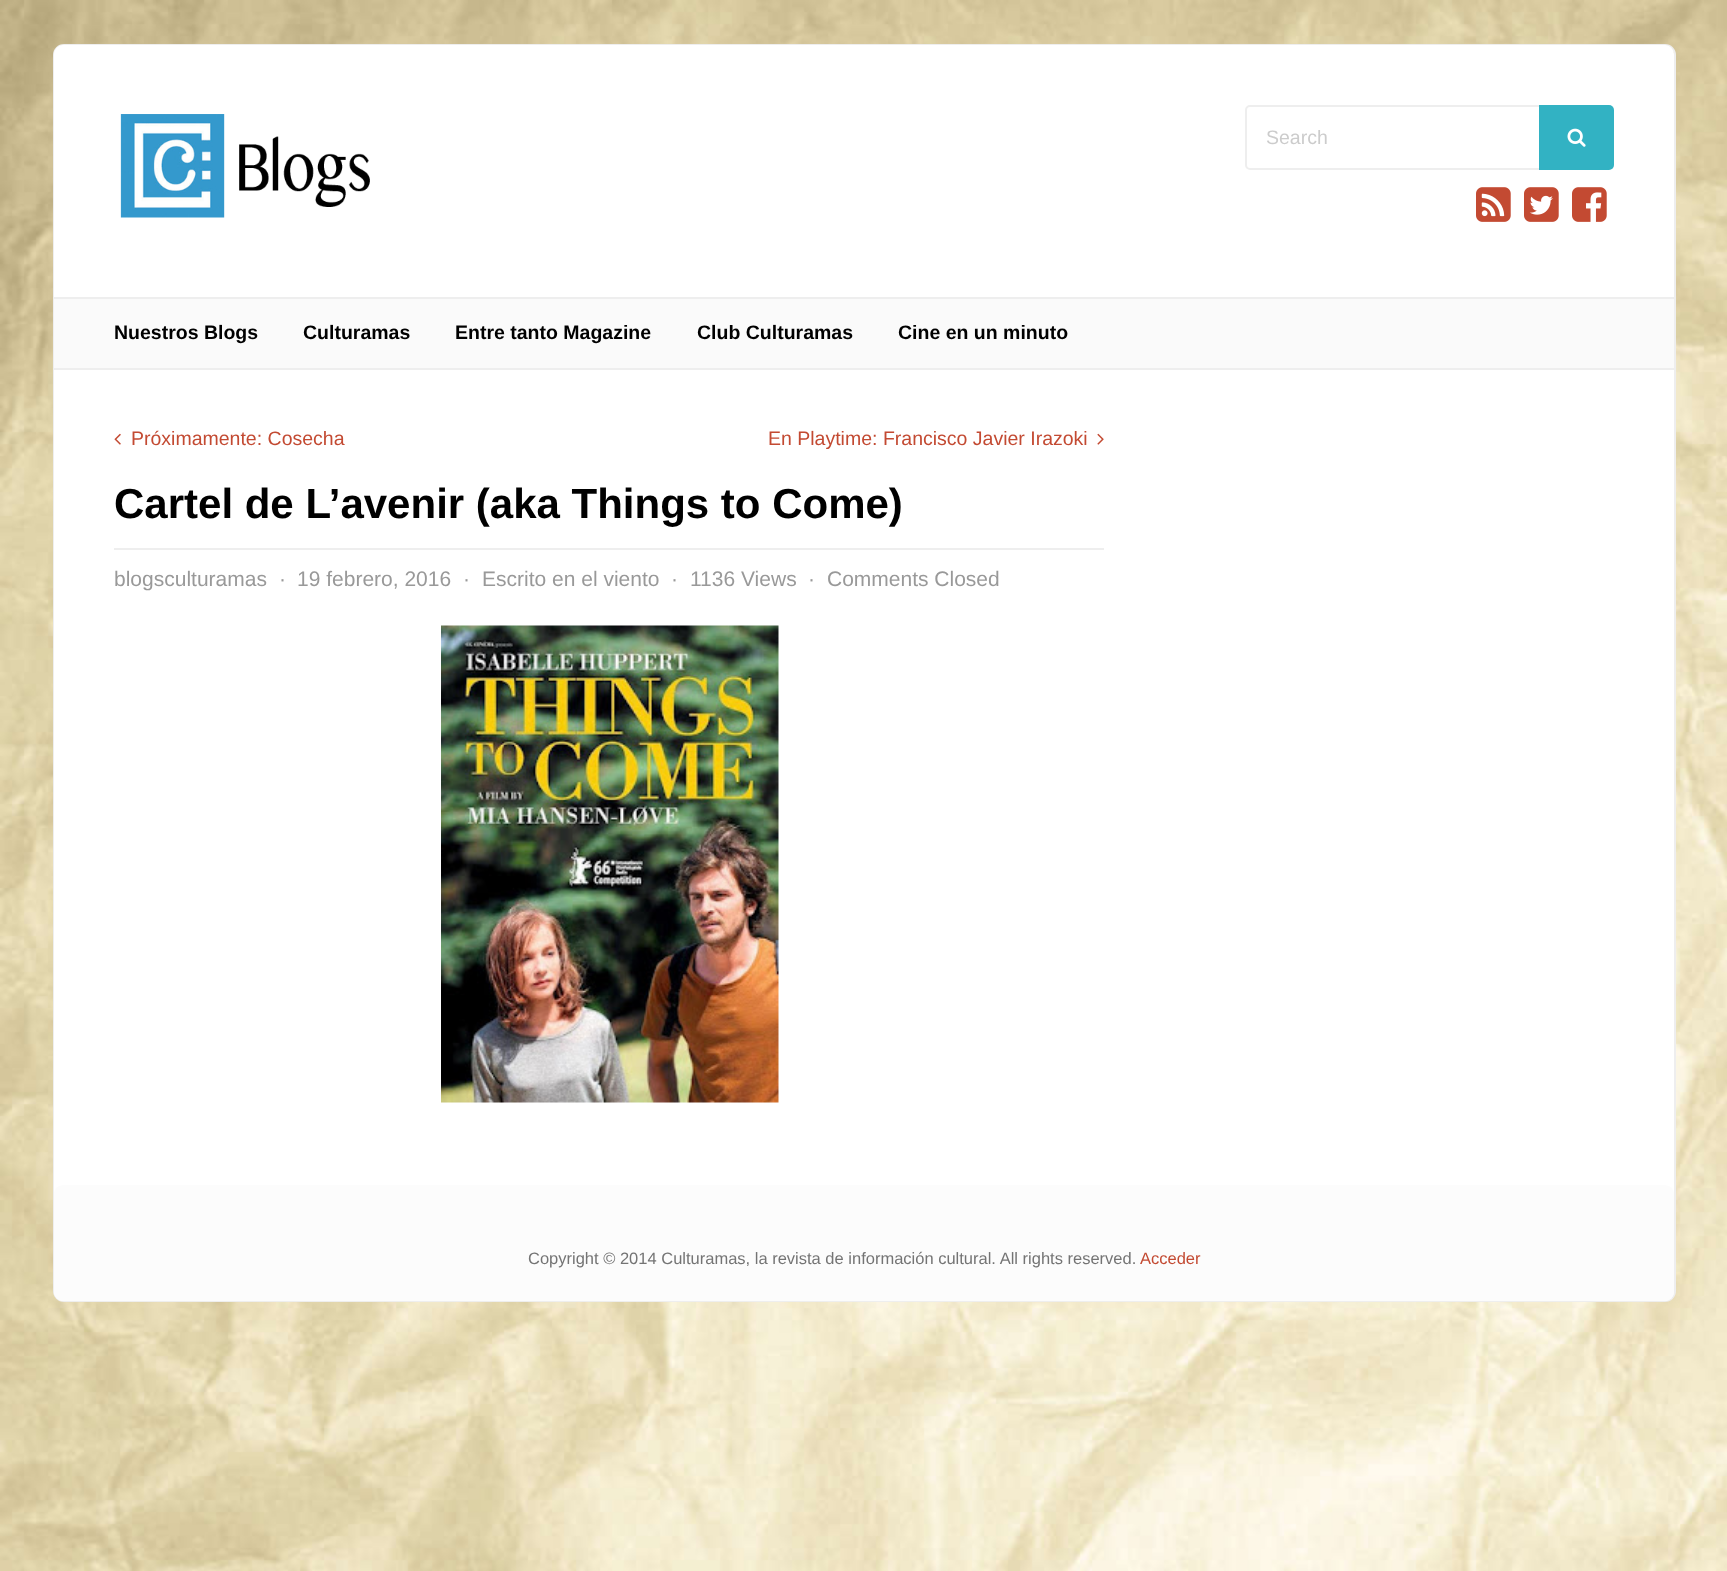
async function draw(canvas) {
	canvas.width = 1727;
	canvas.height = 1571;
	const c = canvas.getContext('2d');
	c.miterLimit = 4;
	c.fontKerning = 'normal';
	async function loadImage(src) {
		const img = new Image();
		img.src = src;
		await img.decode();
		return img;
	}

	c.fillStyle = '#fff';
	c.fillRect(0, 0, 1727, 1571);
	c.drawImage(await loadImage('img1.png'), 0, 0, 1727, 1571);
	c.beginPath();
	c.roundRect(54, 45, 1621, 1256, 10);
	c.strokeStyle = '#eee';
	c.lineWidth = 2;
	c.stroke();
	c.beginPath();
	c.roundRect(54, 45, 1620, 1256, 9);
	c.fill();
	c.drawImage(await loadImage('img2.png'), 120, 114, 250, 104);
	c.beginPath();
	c.roundRect(1246, 106, 298, 63, [4, 0, 0, 4]);
	c.stroke();
	c.font = '19.5px Liberation Sans';
	c.fillStyle = '#ccc';
	c.fillText('Search', 1266, 144);
	c.fillStyle = '#32b2c3';
	c.beginPath();
	c.roundRect(1539, 105, 75, 65, [0, 5, 5, 0]);
	c.fill();
	c.drawImage(await loadImage('img3.png'), 1567, 128, 19, 19);
	c.drawImage(await loadImage('img4.png'), 1476, 187, 35, 35);
	c.drawImage(await loadImage('img5.png'), 1524, 187, 35, 35);
	c.drawImage(await loadImage('img6.png'), 1572, 187, 35, 35);
	for (const [x, y, w, h, color] of [
		[54, 299, 1620, 69, '#fafafa'],
		[54, 297, 1620, 2, '#eee'],
		[54, 368, 1620, 2, '#eee'],
	]) {
		c.fillStyle = color;
		c.fillRect(x, y, w, h);
	}
	c.font = 'bold 19.5px Liberation Sans';
	c.fillStyle = '#000';
	for (const [text, x, y] of [
		['Nuestros Blogs', 114, 339],
		['Culturamas', 303, 339],
		['Entre tanto Magazine', 455, 339],
		['Club Culturamas', 697, 339],
		['Cine en un minuto', 898, 339],
	]) {
		c.fillText(text, x, y);
	}
	c.drawImage(await loadImage('img7.png'), 114, 433, 7, 12);
	c.font = '19.5px Liberation Sans';
	c.fillStyle = '#c34a32';
	c.fillText('Próximamente: Cosecha', 131, 445);
	c.fillText('En Playtime: Francisco Javier Irazoki', 768, 445);
	c.drawImage(await loadImage('img8.png'), 1097, 433, 7, 12);
	c.fillStyle = '#eee';
	c.fillRect(114, 548, 990, 2);
	c.font = 'bold 42px Liberation Sans';
	c.fillStyle = '#000';
	c.fillText('Cartel de L’avenir (aka Things to Come)', 114, 518);
	c.font = '21px Liberation Sans';
	c.fillStyle = '#999';
	for (const [text, x, y] of [
		['blogsculturamas', 114, 586],
		['·', 279, 586],
		['19 febrero, 2016', 297, 586],
		['·', 463, 586],
		['Escrito en el viento', 482, 586],
		['·', 671, 586],
		['1136 Views', 690, 586],
		['·', 808, 586],
		['Comments Closed', 827, 586],
	]) {
		c.fillText(text, x, y);
	}
	c.drawImage(await loadImage('img9.png'), 441, 625, 338, 478);
	c.fillStyle = '#fcfcfc';
	c.beginPath();
	c.roundRect(54, 1185, 1620, 116, 9);
	c.fill();
	c.font = '16.5px Liberation Sans';
	c.fillStyle = '#747474';
	c.fillText('Copyright © 2014 Culturamas, la revista de información cultural. All rights reserved.', 528, 1264);
	c.fillStyle = '#c34a32';
	c.fillText('Acceder', 1140, 1264);
}

draw(document.querySelector('canvas'));
